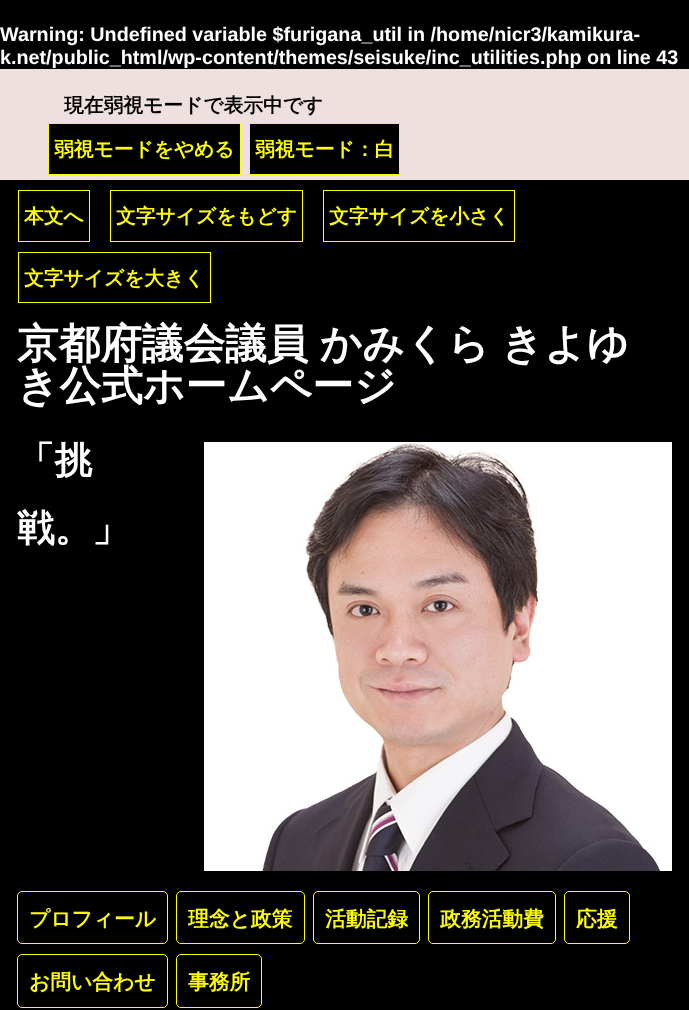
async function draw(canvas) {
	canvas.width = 689;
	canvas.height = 1010;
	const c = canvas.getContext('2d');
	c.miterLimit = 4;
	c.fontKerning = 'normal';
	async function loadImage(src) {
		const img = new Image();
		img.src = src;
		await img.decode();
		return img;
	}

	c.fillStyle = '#000';
	c.fillRect(0, 0, 689, 1010);
	c.font = 'bold 19.75px Liberation Sans';
	c.fillStyle = '#fff';
	c.fillText('Warning: Undefined variable $furigana_util in /home/nicr3/kamikura-', 0, 41);
	c.fillText('k.net/public_html/wp-content/themes/seisuke/inc_utilities.php on line 43', 0, 64);
	c.fillStyle = '#efe0e0';
	c.fillRect(0, 69, 689, 111);
	c.font = 'bold 19.75px WenQuanYi Zen Hei';
	c.fillStyle = '#000';
	c.fillText('現在弱視モードで表示中です', 64, 112);
	c.beginPath();
	c.rect(48.5, 123.5, 192, 51);
	c.fill();
	c.strokeStyle = '#ff0';
	c.stroke();
	c.fillStyle = '#ff0';
	c.fillText('弱視モードをやめる', 54, 156);
	c.fillStyle = '#000';
	c.beginPath();
	c.rect(249.5, 123.5, 150, 51);
	c.fill();
	c.stroke();
	c.fillStyle = '#ff0';
	c.fillText('弱視モード：白', 255, 156);
	c.strokeRect(18.5, 190.5, 71, 51);
	c.fillText('本文へ', 24, 223);
	c.strokeRect(110.5, 190.5, 192, 51);
	c.fillText('文字サイズをもどす', 116, 223);
	c.strokeRect(323.5, 190.5, 191, 51);
	c.fillText('文字サイズを小さく', 329, 223);
	c.strokeRect(18.5, 252.5, 192, 50);
	c.fillText('文字サイズを大きく', 24, 285);
	c.wordSpacing = '-1px';
	c.font = 'bold 41.6px WenQuanYi Zen Hei';
	c.fillStyle = '#fff';
	c.fillText('京都府議会議員 かみくら きよゆ', 17, 358);
	c.wordSpacing = '0px';
	c.fillText('き公式ホームページ', 17, 400);
	c.font = 'bold 37.5px WenQuanYi Zen Hei';
	c.fillText('「挑', 17, 473);
	c.fillText('戦。」', 17, 541);
	c.drawImage(await loadImage('img1.png'), 204, 442, 468, 429);
	c.beginPath();
	c.roundRect(17.5, 891.5, 150, 52, 4.5);
	c.stroke();
	c.font = 'bold 20.75px WenQuanYi Zen Hei';
	c.fillStyle = '#ff0';
	c.fillText('プロフィール', 29, 926);
	c.beginPath();
	c.roundRect(176.5, 891.5, 128, 52, 4.5);
	c.stroke();
	c.fillText('理念と政策', 188, 926);
	c.beginPath();
	c.roundRect(313.5, 891.5, 106, 52, 4.5);
	c.stroke();
	c.fillText('活動記録', 325, 926);
	c.beginPath();
	c.roundRect(428.5, 891.5, 127, 52, 4.5);
	c.stroke();
	c.fillText('政務活動費', 440, 926);
	c.beginPath();
	c.roundRect(564.5, 891.5, 65, 52, 4.5);
	c.stroke();
	c.fillText('応援', 576, 926);
	c.beginPath();
	c.roundRect(17.5, 954.5, 150, 53, 4.5);
	c.stroke();
	c.fillText('お問い合わせ', 29, 989);
	c.beginPath();
	c.roundRect(176.5, 954.5, 85, 53, 4.5);
	c.stroke();
	c.fillText('事務所', 188, 989);
}

draw(document.querySelector('canvas'));
